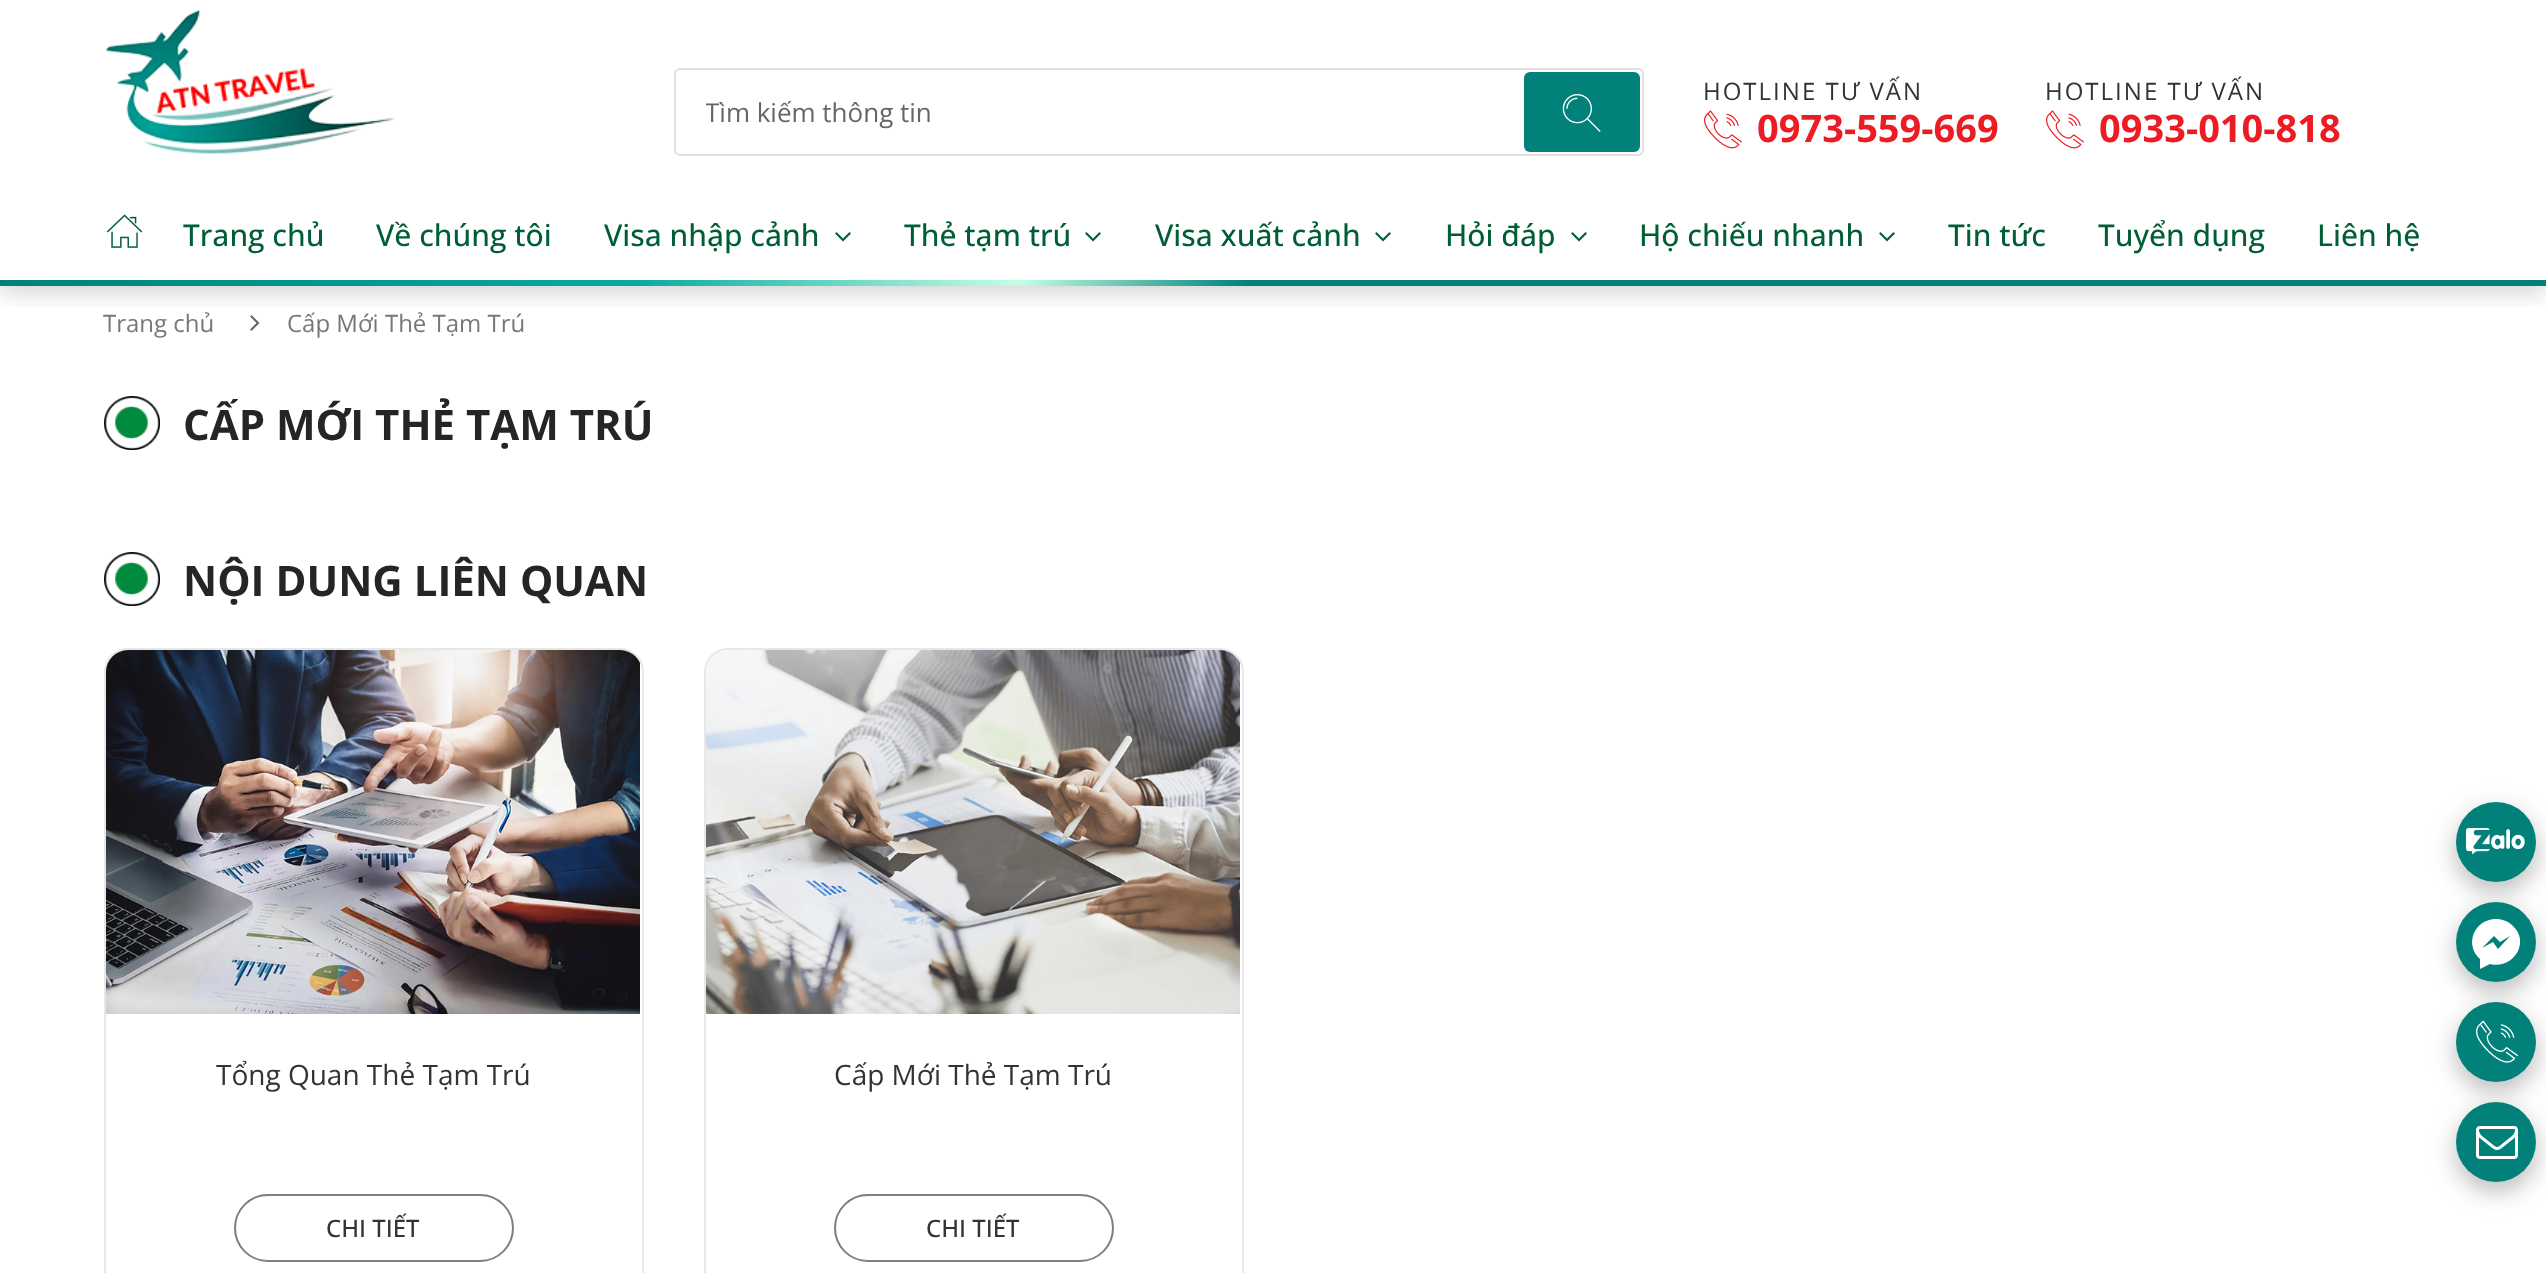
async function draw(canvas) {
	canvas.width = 2546;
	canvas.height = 1273;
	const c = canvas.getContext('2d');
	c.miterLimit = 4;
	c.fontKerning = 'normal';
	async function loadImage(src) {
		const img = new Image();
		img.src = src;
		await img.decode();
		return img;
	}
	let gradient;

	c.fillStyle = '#fff';
	c.fillRect(0, 0, 2546, 1273);
	c.save();
	c.beginPath();
	c.rect(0, 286, 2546, 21);
	c.clip();
	c.fillStyle = '#0000002e';
	c.filter = 'blur(12px)';
	c.beginPath();
	c.rect(0, 6, 2546, 286);
	c.fill();
	c.filter = 'none';
	c.restore();
	c.drawImage(await loadImage('img1.png'), 105, 10, 290, 145);
	c.beginPath();
	c.roundRect(675, 69, 968, 86, 5);
	c.strokeStyle = '#dfdfdf';
	c.lineWidth = 2;
	c.stroke();
	c.save();
	c.beginPath();
	c.rect(706, 94, 536, 36);
	c.clip();
	c.font = '26px Open Sans';
	c.fillStyle = '#666';
	c.fillText('Tìm kiếm thông tin', 705, 122);
	c.restore();
	c.fillStyle = '#018179';
	c.beginPath();
	c.roundRect(1524, 72, 116, 80, 6);
	c.fill();
	c.drawImage(await loadImage('img2.png'), 1562, 94, 39, 38);
	c.letterSpacing = '2px';
	c.font = '24px Open Sans';
	c.fillStyle = '#333';
	c.fillText('HOTLINE TƯ VẤN', 1703, 100);
	c.drawImage(await loadImage('img3.png'), 1704, 110, 38, 39);
	c.letterSpacing = '0px';
	c.font = 'bold 38px Open Sans';
	c.fillStyle = '#ed1c24';
	c.fillText('0973-559-669', 1757, 142);
	c.letterSpacing = '2px';
	c.font = '24px Open Sans';
	c.fillStyle = '#333';
	c.fillText('HOTLINE TƯ VẤN', 2045, 100);
	c.drawImage(await loadImage('img3.png'), 2046, 110, 38, 39);
	c.letterSpacing = '0px';
	c.font = 'bold 38px Open Sans';
	c.fillStyle = '#ed1c24';
	c.fillText('0933-010-818', 2099, 142);
	c.drawImage(await loadImage('img4.png'), 107, 214, 36, 34);
	c.font = '500 30px Open Sans';
	c.fillStyle = '#005e35';
	for (const [text, x, y] of [
		['Trang chủ', 183, 246],
		['Về chúng tôi', 376, 246],
		['Visa nhập cảnh', 604, 246],
	]) {
		c.fillText(text, x, y);
	}
	c.drawImage(await loadImage('img5.png'), 835, 232, 16, 10);
	c.fillText('Thẻ tạm trú', 904, 246);
	c.drawImage(await loadImage('img5.png'), 1085, 232, 16, 10);
	c.fillText('Visa xuất cảnh', 1155, 246);
	c.drawImage(await loadImage('img5.png'), 1375, 232, 16, 10);
	c.fillText('Hỏi đáp', 1445, 246);
	c.drawImage(await loadImage('img5.png'), 1571, 232, 16, 10);
	c.fillText('Hộ chiếu nhanh', 1639, 246);
	c.drawImage(await loadImage('img5.png'), 1879, 232, 16, 10);
	for (const [text, x, y] of [
		['Tin tức', 1948, 246],
		['Tuyển dụng', 2098, 246],
		['Liên hệ', 2317, 246],
	]) {
		c.fillText(text, x, y);
	}
	gradient = c.createLinearGradient(0, 283, 2546, 283);
	gradient.addColorStop(0, '#00827a');
	gradient.addColorStop(0.25, '#09a9a0');
	gradient.addColorStop(0.4, '#c4ffe4');
	gradient.addColorStop(0.49, '#00827a');
	gradient.addColorStop(1, '#00827a');
	c.fillStyle = gradient;
	c.fillRect(0, 280, 2546, 6);
	c.font = '24px Open Sans';
	c.fillStyle = '#777';
	c.fillText('Trang chủ', 103, 332);
	c.drawImage(await loadImage('img6.png'), 250, 315, 10, 16);
	c.fillText('Cấp Mới Thẻ Tạm Trú', 287, 332);
	c.drawImage(await loadImage('img7.png'), 104, 396, 56, 54);
	c.font = 'bold 42px Open Sans';
	c.fillStyle = '#252525';
	c.fillText('CẤP MỚI THẺ TẠM TRÚ', 183, 440);
	c.drawImage(await loadImage('img8.png'), 104, 552, 56, 54);
	c.fillText('NỘI DUNG LIÊN QUAN', 183, 596);
	c.beginPath();
	c.roundRect(105, 649, 538, 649, 23);
	c.strokeStyle = '#e7e7e7';
	c.stroke();
	c.fillStyle = '#fff';
	c.beginPath();
	c.roundRect(106, 650, 536, 364, [22, 22, 0, 0]);
	c.fill();
	c.drawImage(await loadImage('img9.png'), 106, 650, 534, 364);
	c.font = '28px Open Sans';
	c.fillStyle = '#333';
	c.fillText('Tổng Quan Thẻ Tạm Trú', 216, 1085);
	c.beginPath();
	c.roundRect(235, 1195, 278, 66, 33);
	c.strokeStyle = '#7f7f7f';
	c.stroke();
	c.font = '500 24px Open Sans';
	c.fillText('CHI TIẾT', 326, 1237);
	c.beginPath();
	c.roundRect(705, 649, 538, 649, 23);
	c.strokeStyle = '#e7e7e7';
	c.stroke();
	c.fillStyle = '#fff';
	c.beginPath();
	c.roundRect(706, 650, 536, 364, [22, 22, 0, 0]);
	c.fill();
	c.drawImage(await loadImage('img10.png'), 706, 650, 534, 364);
	c.font = '28px Open Sans';
	c.fillStyle = '#333';
	c.fillText('Cấp Mới Thẻ Tạm Trú', 834, 1085);
	c.beginPath();
	c.roundRect(835, 1195, 278, 66, 33);
	c.strokeStyle = '#7f7f7f';
	c.stroke();
	c.font = '500 24px Open Sans';
	c.fillText('CHI TIẾT', 926, 1237);
	c.fillStyle = '#00000021';
	c.filter = 'blur(15px)';
	c.beginPath();
	c.roundRect(2456, 810, 80, 80, 40);
	c.fill();
	c.filter = 'none';
	c.fillStyle = '#00000026';
	c.filter = 'blur(10px)';
	c.beginPath();
	c.roundRect(2456, 812, 80, 80, 40);
	c.fill();
	c.filter = 'none';
	c.fillStyle = '#018179';
	c.beginPath();
	c.arc(2496, 842, 40, 0, 2 * Math.PI);
	c.fill();
	c.drawImage(await loadImage('img11.png'), 2466, 828, 59, 27);
	c.fillStyle = '#00000021';
	c.filter = 'blur(15px)';
	c.beginPath();
	c.roundRect(2456, 910, 80, 80, 40);
	c.fill();
	c.filter = 'none';
	c.fillStyle = '#00000026';
	c.filter = 'blur(10px)';
	c.beginPath();
	c.roundRect(2456, 912, 80, 80, 40);
	c.fill();
	c.filter = 'none';
	c.fillStyle = '#018179';
	c.beginPath();
	c.arc(2496, 942, 40, 0, 2 * Math.PI);
	c.fill();
	c.fillStyle = '#fff';
	c.beginPath();
	c.moveTo(2496, 919);
	c.bezierCurveTo(2474, 919, 2464, 945, 2480, 959);
	c.lineTo(2480, 969);
	c.lineTo(2490, 964);
	c.bezierCurveTo(2512, 970, 2531, 943, 2513, 926);
	c.bezierCurveTo(2508, 921, 2502, 919, 2496, 919);
	c.closePath();
	c.moveTo(2494, 936);
	c.lineTo(2500, 942);
	c.lineTo(2510, 936);
	c.lineTo(2498, 949);
	c.lineTo(2493, 942);
	c.lineTo(2482, 948);
	c.closePath();
	c.fill();
	c.fillStyle = '#00000021';
	c.filter = 'blur(15px)';
	c.beginPath();
	c.roundRect(2456, 1010, 80, 80, 40);
	c.fill();
	c.filter = 'none';
	c.fillStyle = '#00000026';
	c.filter = 'blur(10px)';
	c.beginPath();
	c.roundRect(2456, 1012, 80, 80, 40);
	c.fill();
	c.filter = 'none';
	c.fillStyle = '#018179';
	c.beginPath();
	c.arc(2496, 1042, 40, 0, 2 * Math.PI);
	c.fill();
	c.drawImage(await loadImage('img12.png'), 2476, 1020, 42, 43);
	c.fillStyle = '#00000021';
	c.filter = 'blur(15px)';
	c.beginPath();
	c.roundRect(2456, 1110, 80, 80, 40);
	c.fill();
	c.filter = 'none';
	c.fillStyle = '#00000026';
	c.filter = 'blur(10px)';
	c.beginPath();
	c.roundRect(2456, 1112, 80, 80, 40);
	c.fill();
	c.filter = 'none';
	c.fillStyle = '#018179';
	c.beginPath();
	c.arc(2496, 1142, 40, 0, 2 * Math.PI);
	c.fill();
	c.drawImage(await loadImage('img13.png'), 2476, 1126, 42, 33);
}

draw(document.querySelector('canvas'));
